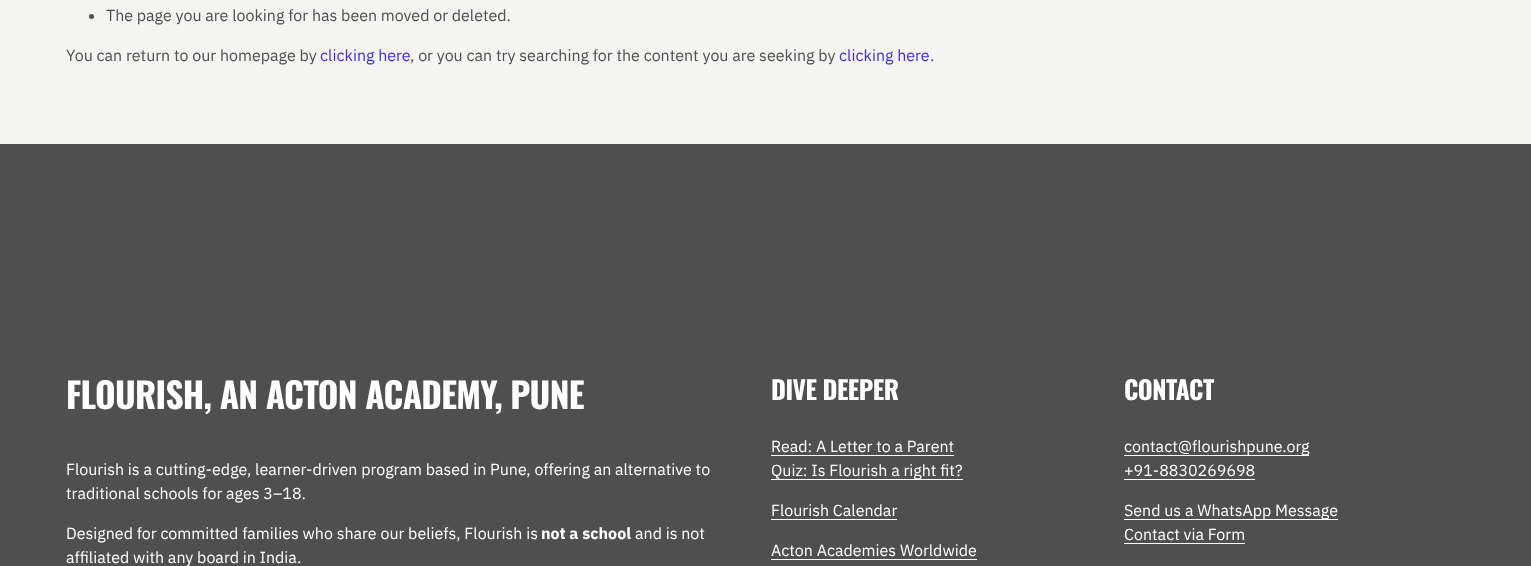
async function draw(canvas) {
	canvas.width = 1531;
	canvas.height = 566;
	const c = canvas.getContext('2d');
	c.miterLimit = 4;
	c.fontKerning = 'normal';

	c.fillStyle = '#f4f4f3';
	c.fillRect(0, 0, 1531, 566);
	c.fillStyle = '#4f4f4f';
	c.beginPath();
	c.arc(91.5, 16.5, 2.5, 0, 2 * Math.PI);
	c.fill();
	c.font = '16px IBM Plex Sans';
	c.fillText('The page you are looking for has been moved or deleted.', 106, 21);
	c.fillText('You can return to our homepage by', 66, 61);
	c.fillStyle = '#422fd3';
	c.fillText('clicking here', 320, 61);
	c.fillStyle = '#4f4f4f';
	c.fillText(', or you can try searching for the content you are seeking by', 410, 61);
	c.fillStyle = '#422fd3';
	c.fillText('clicking here', 839, 61);
	c.fillStyle = '#4f4f4f';
	c.fillText('.', 930, 61);
	c.fillRect(0, 144, 1531, 422);
	c.letterSpacing = '-0.7px';
	c.font = 'bold 35.25px Oswald';
	c.fillStyle = '#fff';
	c.fillText('FLOURISH, AN ACTON ACADEMY, PUNE', 66, 409);
	c.letterSpacing = '-0.5px';
	c.font = 'bold 25.5px Oswald';
	c.fillText('DIVE DEEPER', 771, 400);
	c.letterSpacing = '0px';
	c.font = '16px IBM Plex Sans';
	c.fillText('Read: A Letter to a Parent', 771, 452);
	c.fillRect(771, 455, 183, 1);
	c.fillRect(771, 479, 192, 1);
	c.fillText('Quiz: Is Flourish a right fit?', 771, 476);
	c.fillText('Flourish Calendar', 771, 516);
	c.fillRect(771, 519, 126, 1);
	c.fillText('Acton Academies Worldwide', 771, 556);
	c.fillRect(771, 559, 206, 1);
	c.letterSpacing = '-0.5px';
	c.font = 'bold 25.5px Oswald';
	c.fillText('CONTACT', 1124, 400);
	c.fillRect(1124, 455, 185, 1);
	c.letterSpacing = '0px';
	c.font = '16px IBM Plex Sans';
	c.fillText('contact@flourishpune.org', 1124, 452);
	c.fillText('+91-8830269698', 1124, 476);
	c.fillRect(1124, 479, 131, 1);
	c.fillRect(1124, 519, 214, 1);
	c.fillText('Send us a WhatsApp Message', 1124, 516);
	c.fillText('Contact via Form', 1124, 540);
	c.fillRect(1124, 543, 121, 1);
	for (const [text, x, y] of [
		['Flourish is a cutting-edge, learner-driven program based in Pune, offering an alternative to', 66, 475],
		['traditional schools for ages 3–18.', 66, 499],
		['Designed for committed families who share our beliefs, Flourish is', 66, 539],
	]) {
		c.fillText(text, x, y);
	}
	c.font = 'bold 16px IBM Plex Sans';
	c.fillText('not a school', 541, 539);
	c.font = '16px IBM Plex Sans';
	c.fillText('and is not', 635, 539);
	c.fillText('affiliated with any board in India.', 66, 563);
}

draw(document.querySelector('canvas'));
